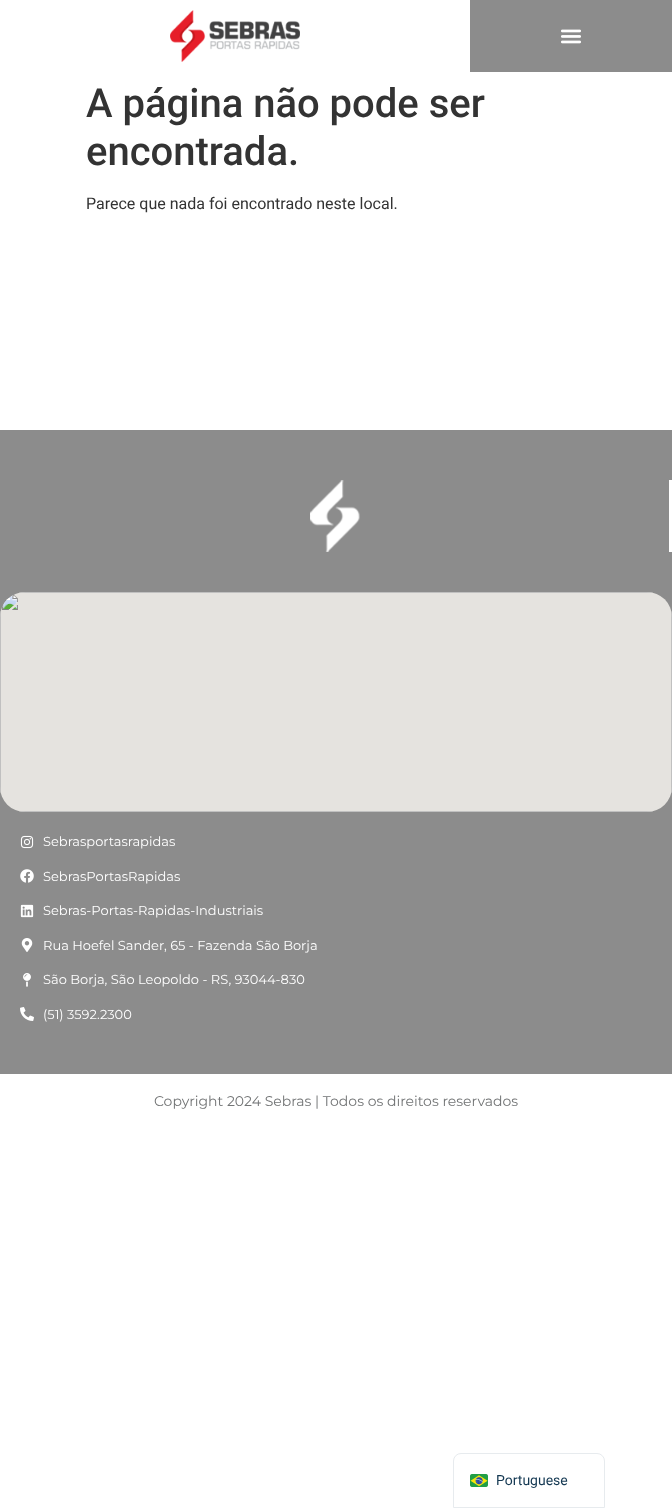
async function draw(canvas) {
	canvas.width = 672;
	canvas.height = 1508;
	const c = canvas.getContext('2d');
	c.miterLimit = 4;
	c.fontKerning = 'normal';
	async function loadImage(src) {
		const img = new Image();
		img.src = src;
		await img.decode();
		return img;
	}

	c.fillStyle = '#fff';
	c.fillRect(0, 0, 672, 1508);
	c.drawImage(await loadImage('img1.png'), 170, 10, 130, 52);
	c.fillStyle = '#8c8c8c';
	c.fillRect(470, 0, 202, 72);
	c.drawImage(await loadImage('img2.png'), 561, 29, 20, 15);
	c.font = '500 40px Roboto';
	c.fillStyle = '#333';
	c.fillText('A página não pode ser', 86, 117);
	c.fillText('encontrada.', 86, 165);
	c.font = '16px Roboto';
	c.fillText('Parece que nada foi encontrado neste local.', 86, 209);
	c.fillStyle = '#8c8c8c';
	c.fillRect(0, 430, 672, 644);
	c.fillStyle = '#fff';
	c.fillRect(669, 480, 3, 72);
	c.drawImage(await loadImage('img3.png'), 310, 480, 50, 72);
	c.drawImage(await loadImage('img4.png'), 0, 592, 672, 220);
	c.drawImage(await loadImage('img5.png'), 20, 835, 14, 14);
	c.font = '13px Montserrat';
	c.fillText('Sebrasportasrapidas', 43, 846);
	c.drawImage(await loadImage('img6.png'), 20, 869, 14, 14);
	c.fillText('SebrasPortasRapidas', 43, 881);
	c.drawImage(await loadImage('img7.png'), 20, 904, 14, 14);
	c.fillText('Sebras-Portas-Rapidas-Industriais', 43, 915);
	c.drawImage(await loadImage('img8.png'), 21, 938, 12, 14);
	c.fillText('Rua Hoefel Sander, 65 - Fazenda São Borja', 43, 950);
	c.drawImage(await loadImage('img9.png'), 23, 973, 8, 14);
	c.fillText('São Borja, São Leopoldo - RS, 93044-830', 43, 984);
	c.drawImage(await loadImage('img10.png'), 20, 1007, 14, 14);
	c.fillText('(51) 3592.2300', 43, 1019);
	c.font = '14px Montserrat';
	c.fillStyle = '#727475';
	c.fillText('Copyright 2024 Sebras | Todos os direitos reservados', 154, 1106);
	c.beginPath();
	c.roundRect(453.5, 1453.5, 151, 54, [7.5, 7.5, 0, 0]);
	c.strokeStyle = '#e7ebee';
	c.stroke();
	c.drawImage(await loadImage('img11.png'), 470, 1474, 18, 13);
	c.font = '14px Roboto';
	c.fillStyle = '#143852';
	c.fillText('Portuguese', 496, 1485);
}

draw(document.querySelector('canvas'));
